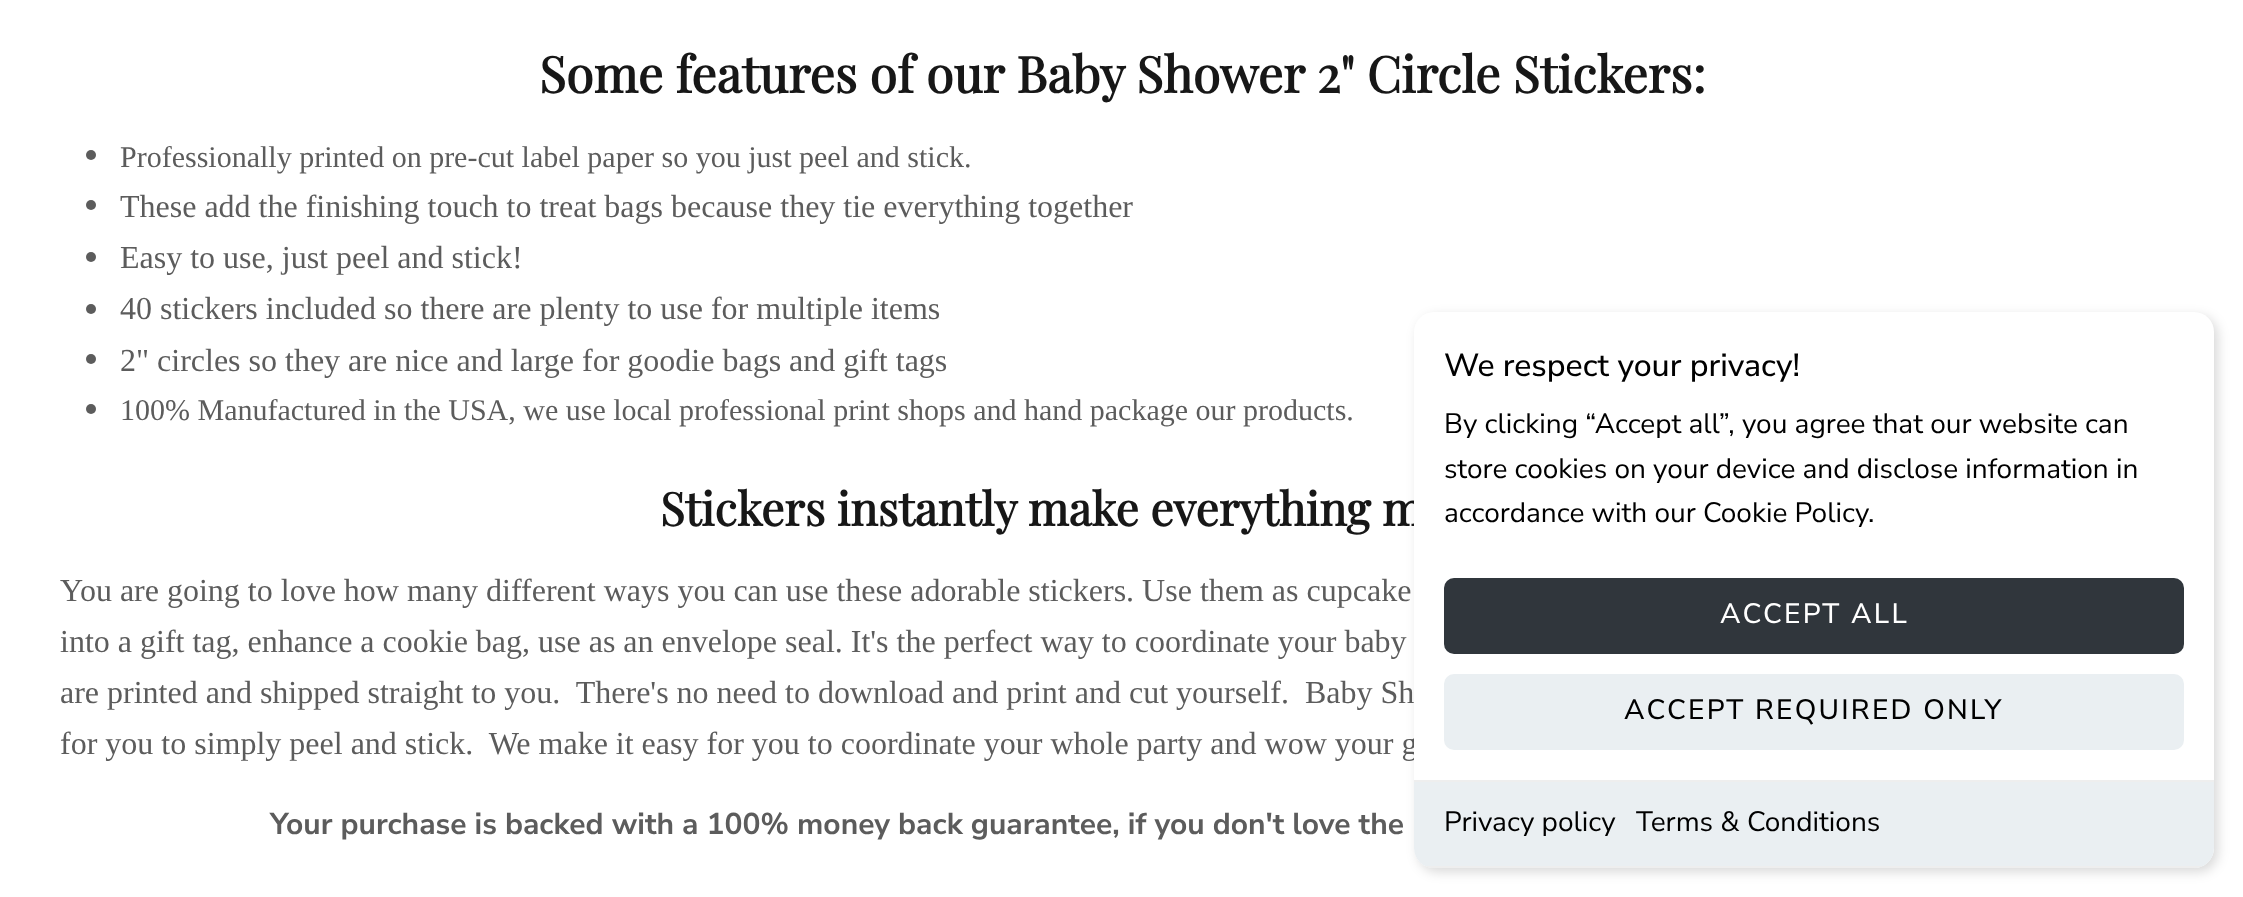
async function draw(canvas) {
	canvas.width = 2243;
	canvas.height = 897;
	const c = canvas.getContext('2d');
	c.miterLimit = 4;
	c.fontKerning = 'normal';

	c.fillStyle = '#fff';
	c.fillRect(0, 0, 2243, 897);
	c.font = 'bold 50px Playfair Display';
	c.fillStyle = '#171717';
	c.fillText('Some features of our Baby Shower 2" Circle Stickers:', 539, 93);
	c.fillStyle = '#5c5c5c';
	c.beginPath();
	c.arc(91, 155, 5, 0, 2 * Math.PI);
	c.fill();
	c.font = '30px Liberation Serif';
	c.fillText('Professionally printed on pre-cut label paper so you just peel and stick.', 120, 167);
	c.beginPath();
	c.arc(91, 205, 5, 0, 2 * Math.PI);
	c.fill();
	c.font = '32px Liberation Serif';
	c.fillText('These add the finishing touch to treat bags because they tie everything together', 120, 217);
	c.beginPath();
	c.arc(91, 257, 5, 0, 2 * Math.PI);
	c.fill();
	c.fillText('Easy to use, just peel and stick!', 120, 268);
	c.beginPath();
	c.arc(91, 309, 5, 0, 2 * Math.PI);
	c.fill();
	c.fillText('40 stickers included so there are plenty to use for multiple items', 120, 319);
	c.beginPath();
	c.arc(91, 359, 5, 0, 2 * Math.PI);
	c.fill();
	c.fillText('2" circles so they are nice and large for goodie bags and gift tags', 120, 371);
	c.beginPath();
	c.arc(91, 409, 5, 0, 2 * Math.PI);
	c.fill();
	c.font = '30px Liberation Serif';
	c.fillText('100% Manufactured in the USA, we use local professional print shops and hand package our products.', 120, 420);
	c.font = 'bold 46px Playfair Display';
	c.fillStyle = '#171717';
	c.fillText('Stickers instantly make everything m', 660, 526);
	c.font = '32px Liberation Serif';
	c.fillStyle = '#5c5c5c';
	for (const [text, x, y] of [
		['You are going to love how many different ways you can use these adorable stickers. Use them as cupcake', 60, 601],
		['into a gift tag, enhance a cookie bag, use as an envelope seal. It\'s the perfect way to coordinate your baby', 60, 652],
		['are printed and shipped straight to you.  There\'s no need to download and print and cut yourself.  Baby Sh', 60, 703],
		['for you to simply peel and stick.  We make it easy for you to coordinate your whole party and wow your g', 60, 754],
	]) {
		c.fillText(text, x, y);
	}
	c.font = 'bold 30px Nunito Sans';
	c.fillText('Your purchase is backed with a 100% money back guarantee, if you don\'t love the', 270, 834);
	c.fillStyle = '#00000026';
	c.filter = 'blur(6px)';
	c.beginPath();
	c.roundRect(1418, 316, 800, 556, 20);
	c.fill();
	c.filter = 'none';
	c.fillStyle = '#fff';
	c.beginPath();
	c.roundRect(1414, 312, 800, 556, 20);
	c.fill();
	c.font = '500 32px Nunito Sans';
	c.fillStyle = '#000';
	c.fillText('We respect your privacy!', 1444, 376);
	c.font = '28px Nunito Sans';
	for (const [text, x, y] of [
		['By clicking “Accept all”, you agree that our website can', 1444, 433],
		['store cookies on your device and disclose information in', 1444, 478],
		['accordance with our Cookie Policy.', 1444, 522],
	]) {
		c.fillText(text, x, y);
	}
	c.fillStyle = '#30363c';
	c.beginPath();
	c.roundRect(1444, 578, 740, 76, 10);
	c.fill();
	c.letterSpacing = '2.25px';
	c.font = '500 28px Nunito Sans';
	c.fillStyle = '#fff';
	c.fillText('ACCEPT ALL', 1720, 623);
	c.fillStyle = '#eaeff2';
	c.beginPath();
	c.roundRect(1444, 674, 740, 76, 10);
	c.fill();
	c.fillStyle = '#000';
	c.fillText('ACCEPT REQUIRED ONLY', 1624, 719);
	c.fillStyle = '#eaeff2';
	c.beginPath();
	c.roundRect(1414, 780, 800, 88, [0, 0, 20, 20]);
	c.fill();
	c.fillStyle = '#eee';
	c.fillRect(1414, 780, 800, 2);
	c.save();
	c.beginPath();
	c.roundRect(1414, 312, 800, 556, 20);
	c.clip();
	c.fillRect(1425, 866, 778, 2);
	c.restore();
	c.letterSpacing = '0px';
	c.font = '28px Nunito Sans';
	c.fillStyle = '#000';
	c.fillText('Privacy policy', 1444, 831);
	c.fillText('Terms & Conditions', 1636, 831);
}

draw(document.querySelector('canvas'));
